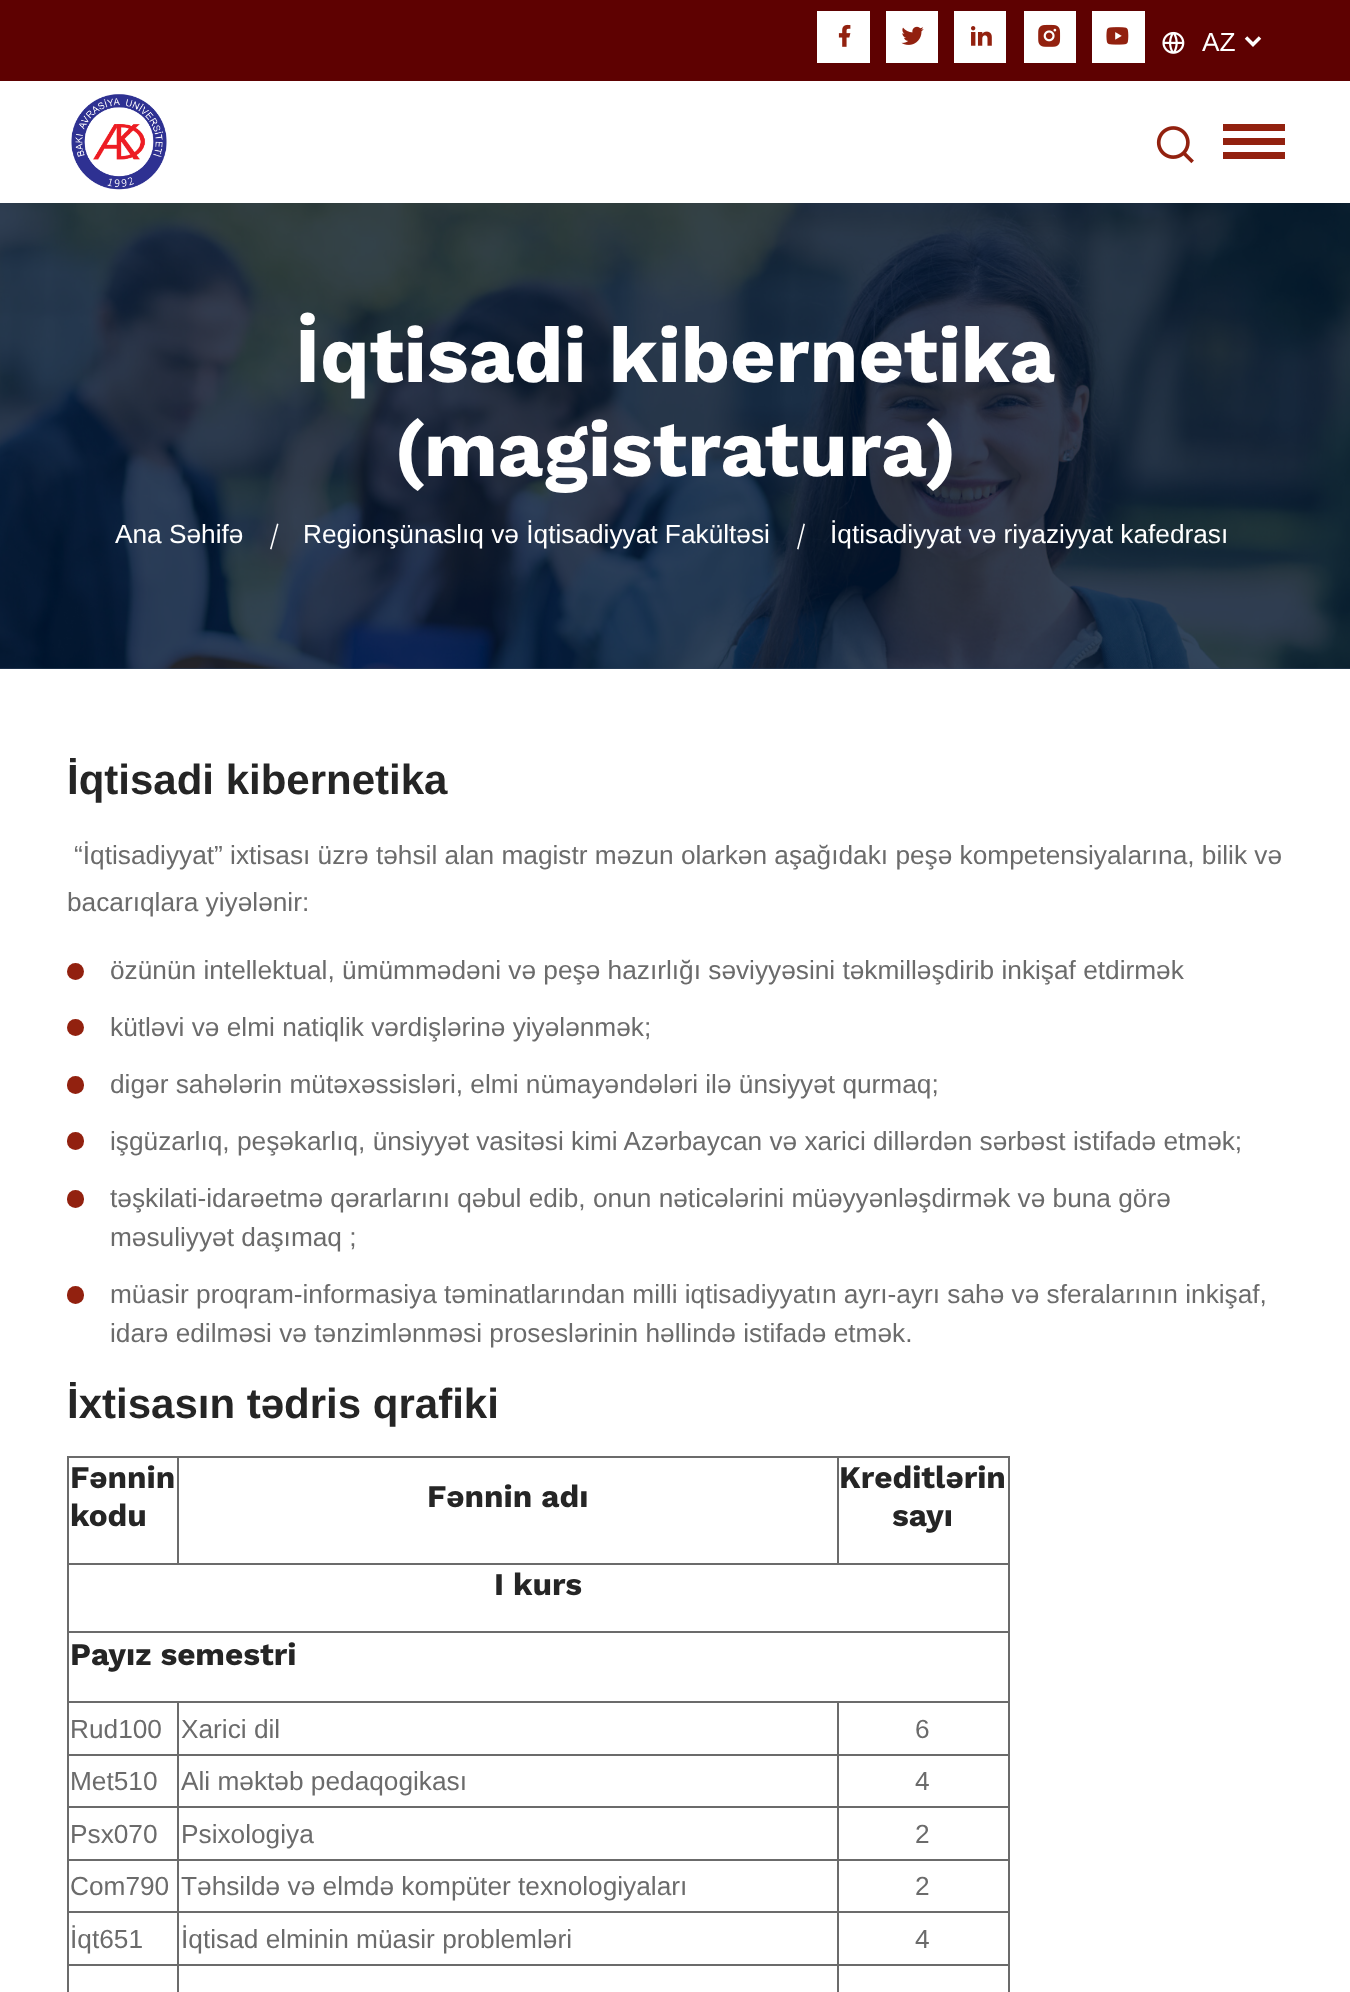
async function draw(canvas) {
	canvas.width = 1350;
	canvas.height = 1992;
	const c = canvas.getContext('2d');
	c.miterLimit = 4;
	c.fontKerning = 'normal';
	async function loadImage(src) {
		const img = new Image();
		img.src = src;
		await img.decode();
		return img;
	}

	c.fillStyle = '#fff';
	c.fillRect(0, 0, 1350, 1992);
	for (const [x, y, w, h, color] of [
		[0, 668, 1350, 1, '#33455c'],
		[0, 0, 1350, 81, '#5e0101'],
		[817, 11, 53, 52, '#fff'],
	]) {
		c.fillStyle = color;
		c.fillRect(x, y, w, h);
	}
	c.drawImage(await loadImage('img1.png'), 838, 24, 13, 23);
	c.fillRect(886, 11, 52, 52);
	c.drawImage(await loadImage('img2.png'), 901, 26, 23, 19);
	c.fillRect(954, 11, 52, 52);
	c.drawImage(await loadImage('img3.png'), 971, 26, 21, 20);
	c.fillRect(1024, 11, 52, 52);
	c.drawImage(await loadImage('img4.png'), 1038, 24, 23, 23);
	c.fillRect(1092, 11, 53, 52);
	c.drawImage(await loadImage('img5.png'), 1106, 27, 23, 18);
	c.drawImage(await loadImage('img6.png'), 1162, 31, 23, 23);
	c.beginPath();
	c.moveTo(1246, 37.5);
	c.lineTo(1253, 44.5);
	c.lineTo(1260, 37.5);
	c.strokeStyle = '#fff';
	c.lineWidth = 3.5;
	c.stroke();
	c.font = '26.25px Liberation Sans';
	c.fillText('AZ', 1202, 51);
	c.drawImage(await loadImage('img7.png'), 71, 94, 96, 96);
	c.drawImage(await loadImage('img8.png'), 1156, 126, 38, 38);
	for (const [x, y, w, h, color] of [
		[1223, 124, 62, 7, '#92210f'],
		[1223, 138, 62, 7, '#92210f'],
		[1223, 152, 62, 7, '#92210f'],
	]) {
		c.fillStyle = color;
		c.fillRect(x, y, w, h);
	}
	c.drawImage(await loadImage('img9.png'), 0, 203, 1350, 466);
	c.font = 'bold 78.75px Work Sans';
	c.fillStyle = '#fff';
	c.fillText('İqtisadi kibernetika', 295, 382);
	c.fillText('(magistratura)', 394, 476);
	c.font = '26.25px Liberation Sans';
	c.fillText('Ana Səhifə', 115, 543);
	c.beginPath();
	c.moveTo(277, 523.5);
	c.lineTo(278.5, 524);
	c.lineTo(271.5, 549.5);
	c.lineTo(270, 549);
	c.closePath();
	c.fill();
	c.fillText('Regionşünaslıq və İqtisadiyyat Fakültəsi', 303, 543);
	c.beginPath();
	c.moveTo(803.5, 523.5);
	c.lineTo(805, 524);
	c.lineTo(798.5, 549.5);
	c.lineTo(797, 549);
	c.closePath();
	c.fill();
	c.fillText('İqtisadiyyat və riyaziyyat kafedrası', 830, 543);
	c.font = 'bold 42px Liberation Sans';
	c.fillStyle = '#252525';
	c.fillText('İqtisadi kibernetika', 67, 794);
	c.font = '26.25px Liberation Sans';
	c.fillStyle = '#6b6b6b';
	c.fillText('“İqtisadiyyat” ixtisası üzrə təhsil alan magistr məzun olarkən aşağıdakı peşə kompetensiyalarına, bilik və', 74, 864);
	c.fillText('bacarıqlara yiyələnir:', 67, 911);
	c.fillStyle = '#92210f';
	c.beginPath();
	c.arc(75.5, 971.5, 8.5, 0, 2 * Math.PI);
	c.fill();
	c.fillStyle = '#6b6b6b';
	c.fillText('özünün intellektual, ümümmədəni və peşə hazırlığı səviyyəsini təkmilləşdirib inkişaf etdirmək', 110, 979);
	c.fillStyle = '#92210f';
	c.beginPath();
	c.arc(75.5, 1027.5, 8.5, 0, 2 * Math.PI);
	c.fill();
	c.fillStyle = '#6b6b6b';
	c.fillText('kütləvi və elmi natiqlik vərdişlərinə yiyələnmək;', 110, 1036);
	c.fillStyle = '#92210f';
	c.beginPath();
	c.roundRect(67, 1076, 17, 18, 8.5);
	c.fill();
	c.fillStyle = '#6b6b6b';
	c.fillText('digər sahələrin mütəxəssisləri, elmi nümayəndələri ilə ünsiyyət qurmaq;', 110, 1093);
	c.fillStyle = '#92210f';
	c.beginPath();
	c.roundRect(67, 1132, 17, 18, 8.5);
	c.fill();
	c.fillStyle = '#6b6b6b';
	c.fillText('işgüzarlıq, peşəkarlıq, ünsiyyət vasitəsi kimi Azərbaycan və xarici dillərdən sərbəst istifadə etmək;', 110, 1150);
	c.fillStyle = '#92210f';
	c.beginPath();
	c.roundRect(67, 1190, 17, 18, 8.5);
	c.fill();
	c.fillStyle = '#6b6b6b';
	c.fillText('təşkilati-idarəetmə qərarlarını qəbul edib, onun nəticələrini müəyyənləşdirmək və buna görə', 110, 1207);
	c.fillText('məsuliyyət daşımaq ;', 110, 1246);
	c.fillStyle = '#92210f';
	c.beginPath();
	c.roundRect(67, 1286, 17, 18, 8.5);
	c.fill();
	c.fillStyle = '#6b6b6b';
	c.fillText('müasir proqram-informasiya təminatlarından milli iqtisadiyyatın ayrı-ayrı sahə və sferalarının inkişaf,', 110, 1303);
	c.fillText('idarə edilməsi və tənzimlənməsi proseslərinin həllində istifadə etmək.', 110, 1342);
	c.font = 'bold 42px Liberation Sans';
	c.fillStyle = '#252525';
	c.fillText('İxtisasın tədris qrafiki', 67, 1418);
	for (const [x, y, w, h, color] of [
		[67, 1456, 943, 2, '#6b6b6b'],
		[1008, 1456, 2, 536, '#6b6b6b'],
		[67, 1456, 2, 536, '#6b6b6b'],
	]) {
		c.fillStyle = color;
		c.fillRect(x, y, w, h);
	}
	c.font = 'bold 31.5px Work Sans';
	c.fillStyle = '#252525';
	c.fillText('Fənnin', 70, 1488);
	c.fillText('kodu', 70, 1526);
	c.fillStyle = '#6b6b6b';
	c.fillRect(67, 1563, 943, 2);
	c.fillRect(177, 1456, 2, 109);
	c.fillStyle = '#252525';
	c.fillText('Fənnin adı', 427, 1507);
	c.fillStyle = '#6b6b6b';
	c.fillRect(837, 1456, 2, 109);
	c.fillStyle = '#252525';
	for (const [text, x, y] of [
		['Kreditlərin', 839, 1488],
		['sayı', 892, 1526],
		['I kurs', 494, 1595],
	]) {
		c.fillText(text, x, y);
	}
	c.fillStyle = '#6b6b6b';
	c.fillRect(67, 1631, 943, 2);
	c.fillStyle = '#252525';
	c.fillText('Payız semestri', 70, 1665);
	for (const [x, y, w, h, color] of [
		[67, 1964, 943, 2, '#6b6b6b'],
		[67, 1701, 943, 2, '#6b6b6b'],
		[67, 1754, 943, 2, '#6b6b6b'],
		[67, 1806, 943, 2, '#6b6b6b'],
		[67, 1859, 943, 2, '#6b6b6b'],
		[67, 1911, 943, 2, '#6b6b6b'],
		[177, 1701, 2, 291, '#6b6b6b'],
		[837, 1701, 2, 291, '#6b6b6b'],
	]) {
		c.fillStyle = color;
		c.fillRect(x, y, w, h);
	}
	c.font = '26.25px Liberation Sans';
	for (const [text, x, y] of [
		['Rud100', 70, 1738],
		['Xarici dil', 181, 1738],
		['6', 915, 1738],
		['Met510', 70, 1790],
		['Ali məktəb pedaqogikası', 181, 1790],
		['4', 915, 1790],
		['Psx070', 70, 1843],
		['Psixologiya', 181, 1843],
		['2', 915, 1843],
		['Com790', 70, 1895],
		['Təhsildə və elmdə kompüter texnologiyaları', 181, 1895],
		['2', 915, 1895],
		['İqt651', 70, 1948],
		['İqtisad elminin müasir problemləri', 181, 1948],
		['4', 915, 1948],
	]) {
		c.fillText(text, x, y);
	}
}

draw(document.querySelector('canvas'));
